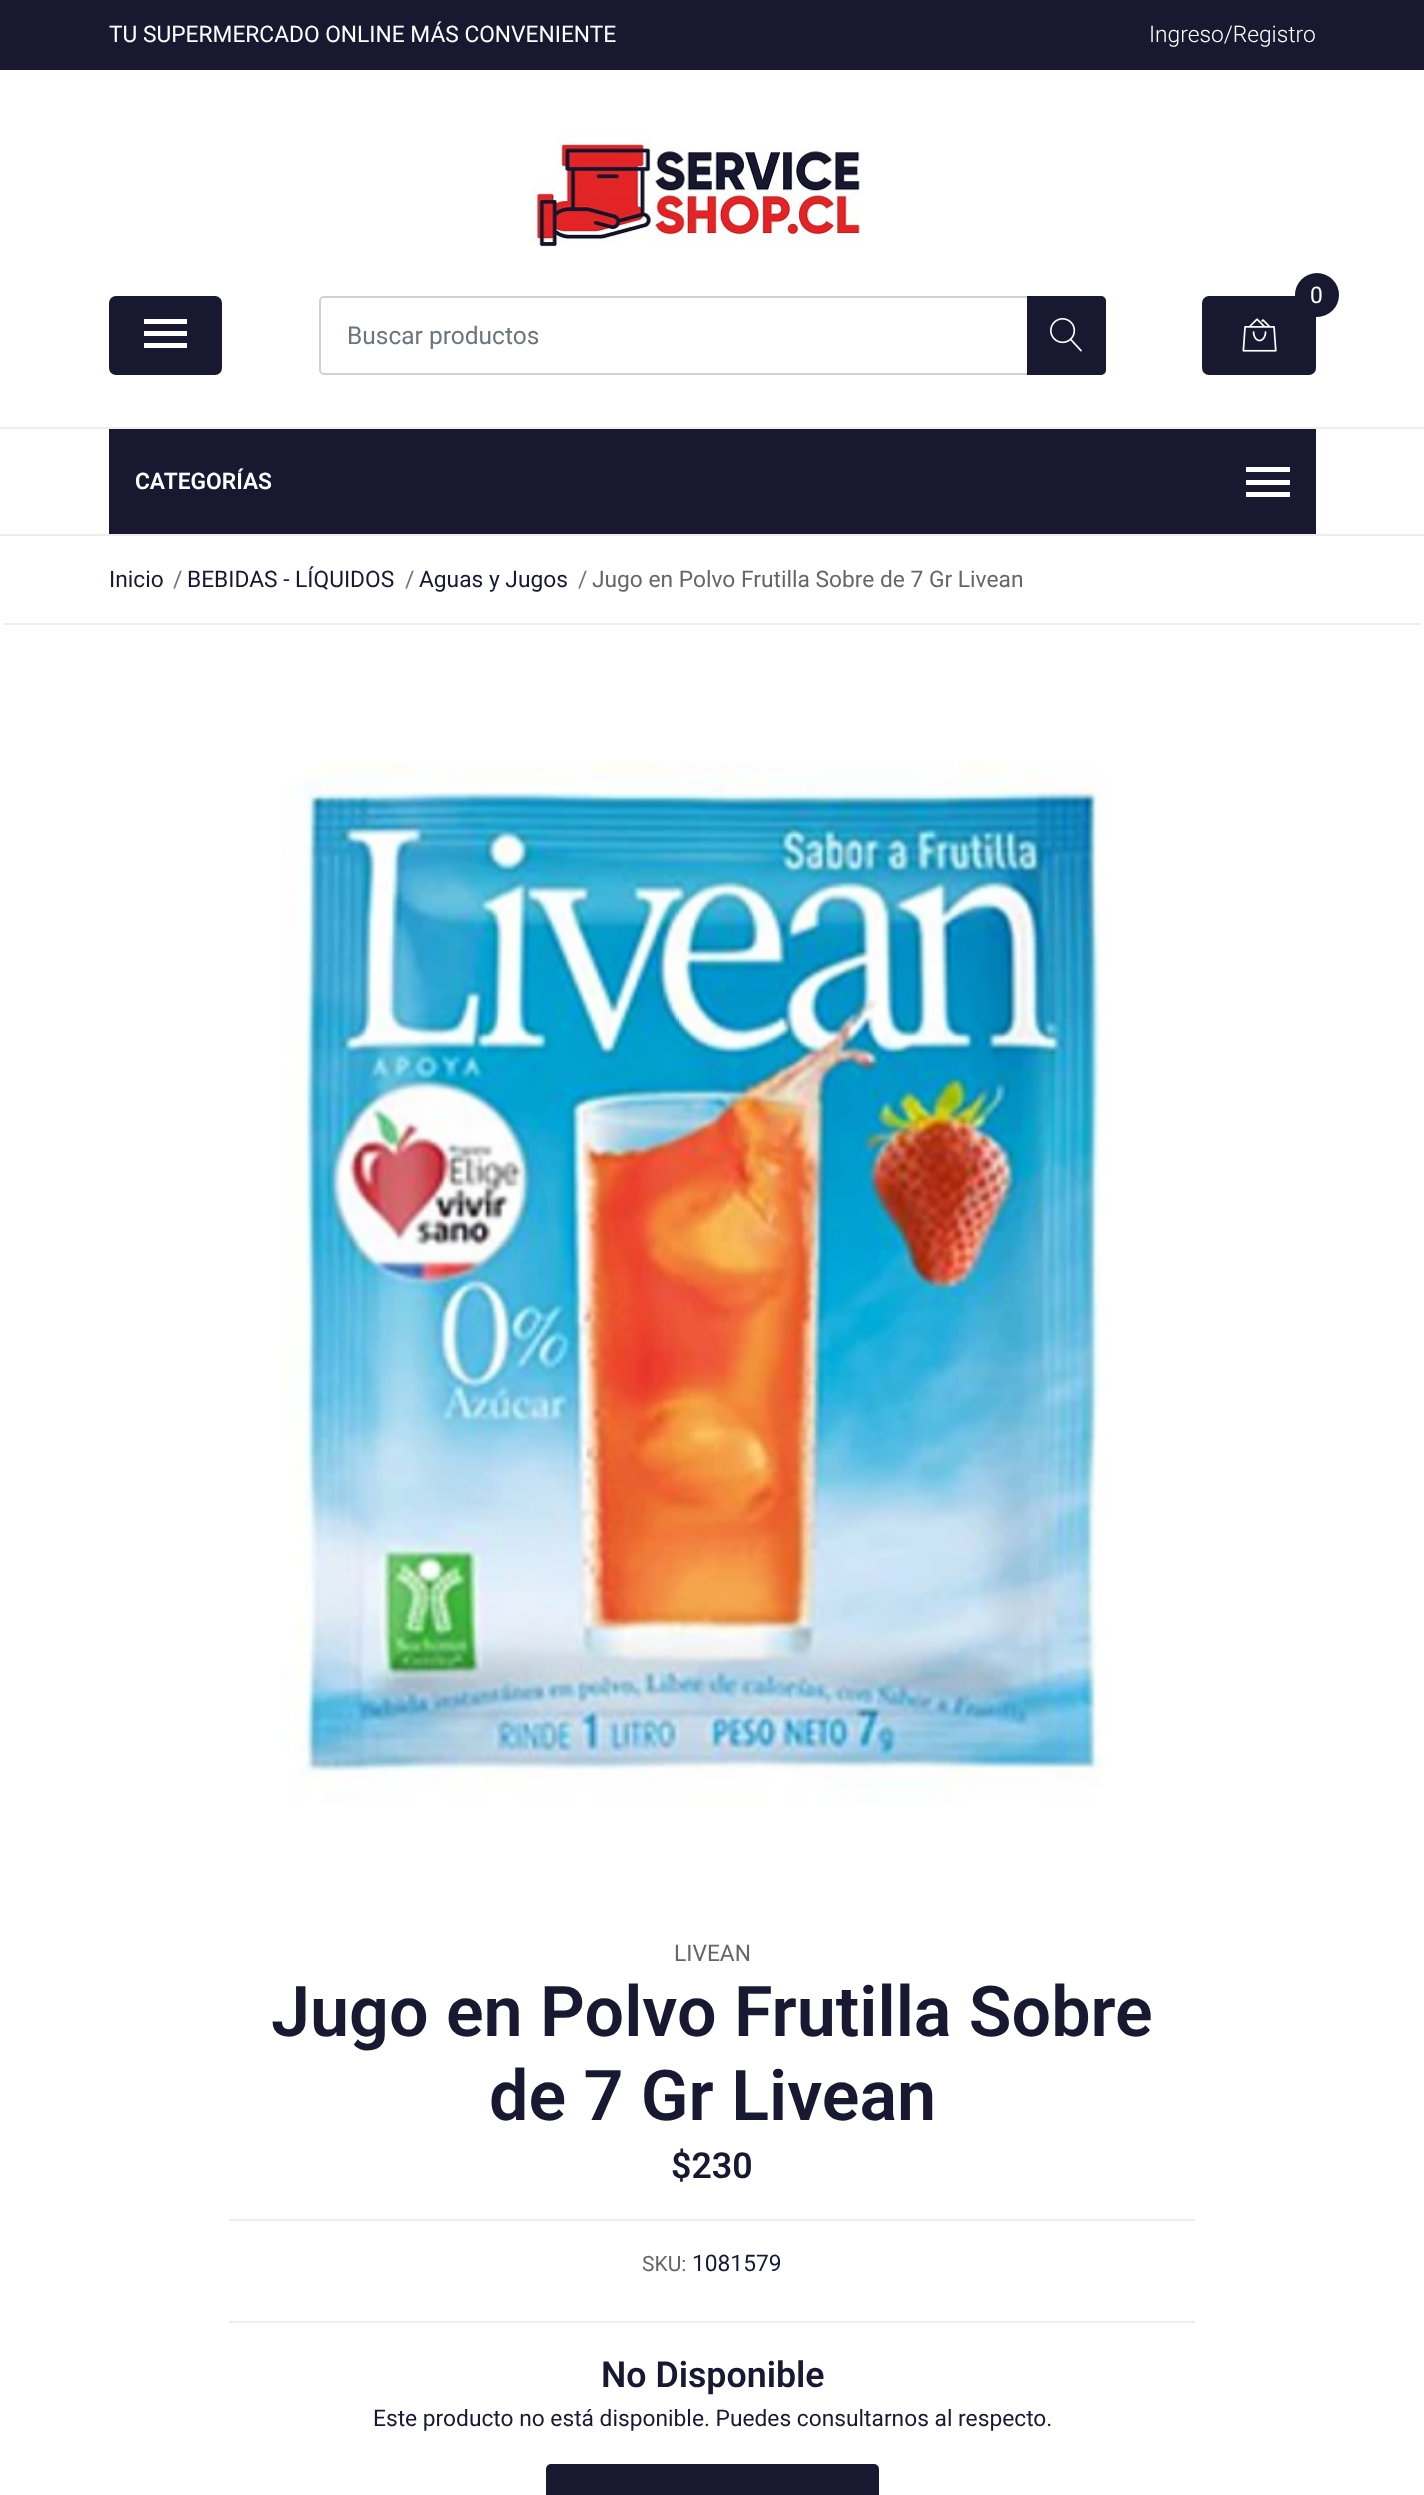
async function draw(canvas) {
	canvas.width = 1424;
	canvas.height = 2495;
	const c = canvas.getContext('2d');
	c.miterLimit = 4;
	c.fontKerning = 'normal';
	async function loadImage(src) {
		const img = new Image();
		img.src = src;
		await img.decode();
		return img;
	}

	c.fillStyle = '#fff';
	c.fillRect(0, 0, 1424, 2495);
	c.fillStyle = '#181930';
	c.fillRect(0, 0, 1424, 70);
	c.font = '22.75px Roboto';
	c.fillStyle = '#fff';
	c.fillText('TU SUPERMERCADO ONLINE MÁS CONVENIENTE', 109, 42);
	c.font = '300 22.75px Roboto';
	c.fillText('Ingreso/Registro', 1149, 42);
	c.drawImage(await loadImage('img1.png'), 532, 134, 329, 113);
	c.fillStyle = '#181930';
	c.beginPath();
	c.roundRect(109, 296, 113, 79, 7);
	c.fill();
	for (const [x, y, w, h, color] of [
		[144, 319, 43, 5, '#fff'],
		[144, 331, 43, 5, '#fff'],
		[144, 343, 43, 5, '#fff'],
	]) {
		c.fillStyle = color;
		c.fillRect(x, y, w, h);
	}
	c.beginPath();
	c.roundRect(320, 297, 785, 77, 4);
	c.strokeStyle = '#d1d1d1';
	c.lineWidth = 2;
	c.stroke();
	c.font = '24.5px Roboto';
	c.fillStyle = '#6c757d';
	c.fillText('Buscar productos', 347, 344);
	c.fillStyle = '#181930';
	c.beginPath();
	c.roundRect(1027, 296, 79, 79, [0, 5, 5, 0]);
	c.fill();
	c.drawImage(await loadImage('img2.png'), 1050, 318, 32, 34);
	c.beginPath();
	c.roundRect(1202, 296, 114, 79, 7);
	c.fill();
	c.drawImage(await loadImage('img3.png'), 1242, 318, 35, 34);
	c.beginPath();
	c.arc(1317, 295, 22, 0, 2 * Math.PI);
	c.fill();
	c.font = '22.75px Roboto';
	c.fillStyle = '#fff';
	c.fillText('0', 1310, 303);
	for (const [x, y, w, h, color] of [
		[0, 427, 1424, 2, '#eee'],
		[0, 534, 1424, 2, '#eee'],
		[109, 429, 1207, 105, '#181930'],
	]) {
		c.fillStyle = color;
		c.fillRect(x, y, w, h);
	}
	c.font = '600 22.75px Roboto';
	c.fillStyle = '#fff';
	c.fillText('CATEGORÍAS', 135, 489);
	for (const [x, y, w, h, color] of [
		[1246, 467, 44, 5, '#fff'],
		[1246, 480, 44, 5, '#fff'],
		[1246, 492, 44, 5, '#fff'],
		[4, 623, 1417, 2, '#eee'],
	]) {
		c.fillStyle = color;
		c.fillRect(x, y, w, h);
	}
	c.font = '22.75px Roboto';
	c.fillStyle = '#181930';
	c.fillText('Inicio', 109, 587);
	c.fillStyle = '#6c757d';
	c.fillText('/', 173, 587);
	c.fillStyle = '#181930';
	c.fillText('BEBIDAS - LÍQUIDOS', 187, 587);
	c.fillStyle = '#6c757d';
	c.fillText('/', 405, 587);
	c.fillStyle = '#181930';
	c.fillText('Aguas y Jugos', 419, 587);
	c.fillStyle = '#6c757d';
	c.fillText('/', 578, 587);
	c.fillStyle = '#666';
	c.fillText('Jugo en Polvo Frutilla Sobre de 7 Gr Livean', 592, 587);
	c.drawImage(await loadImage('img4.png'), 281, 759, 825, 1045);
	c.fillStyle = '#eee';
	c.fillRect(229, 2219, 966, 2);
	c.fillStyle = '#666';
	c.fillText('LIVEAN', 674, 1961);
	c.font = '600 70px Roboto';
	c.fillStyle = '#181930';
	c.fillText('Jugo en Polvo Frutilla Sobre', 271, 2036);
	c.fillText('de 7 Gr Livean', 489, 2120);
	c.font = '600 35.75px Roboto';
	c.fillText('$230', 671, 2178);
	c.fillStyle = '#eee';
	c.fillRect(229, 2321, 966, 2);
	c.font = '21px Roboto';
	c.fillStyle = '#666';
	c.fillText('SKU:', 642, 2271);
	c.font = '22.75px Roboto';
	c.fillStyle = '#181930';
	c.fillText('1081579', 692, 2271);
	c.font = '600 35.75px Roboto';
	c.fillText('No Disponible', 601, 2387);
	c.font = '22.75px Roboto';
	c.fillText('Este producto no está disponible. Puedes consultarnos al respecto.', 373, 2426);
	c.beginPath();
	c.roundRect(546, 2464, 333, 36, 5);
	c.fill();
}

draw(document.querySelector('canvas'));
